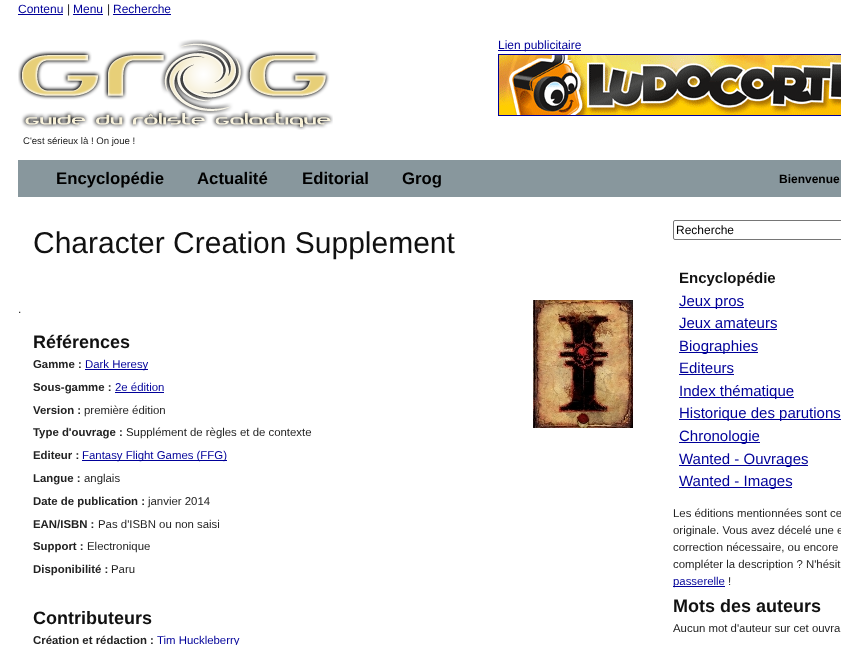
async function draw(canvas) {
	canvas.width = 841;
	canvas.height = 645;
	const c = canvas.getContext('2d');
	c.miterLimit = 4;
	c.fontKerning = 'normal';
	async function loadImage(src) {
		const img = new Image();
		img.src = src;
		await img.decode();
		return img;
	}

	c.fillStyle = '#fff';
	c.fillRect(0, 0, 841, 645);
	c.font = '12px Liberation Sans';
	c.fillStyle = '#009';
	c.fillText('Contenu', 18, 13);
	c.fillRect(18, 14, 45, 1);
	c.fillStyle = '#222';
	c.fillText('|', 67, 13);
	c.fillStyle = '#009';
	c.fillText('Menu', 73, 13);
	c.fillRect(73, 14, 30, 1);
	c.fillStyle = '#222';
	c.fillText('|', 107, 13);
	c.fillStyle = '#009';
	c.fillText('Recherche', 113, 13);
	c.fillRect(113, 14, 58, 1);
	c.fillRect(498, 50, 83, 1);
	c.fillText('Lien publicitaire', 498, 49);
	c.strokeStyle = '#009';
	c.strokeRect(498.5, 54.5, 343, 61);
	c.drawImage(await loadImage('img1.png'), 499, 55, 342, 60);
	c.drawImage(await loadImage('img2.png'), 18, 39, 315, 91);
	c.font = '9.6px Liberation Sans';
	c.fillStyle = '#222';
	c.fillText('C\'est sérieux là ! On joue !', 23, 144);
	c.fillStyle = '#88979d';
	c.fillRect(18, 160, 823, 37);
	c.font = 'bold 16.75px Liberation Sans';
	c.fillStyle = '#000';
	for (const [text, x, y] of [
		['Encyclopédie', 56, 184],
		['Actualité', 197, 184],
		['Editorial', 302, 184],
		['Grog', 402, 184],
	]) {
		c.fillText(text, x, y);
	}
	c.font = 'bold 12px Liberation Sans';
	c.fillText('Bienvenue', 779, 183);
	c.font = '30px Liberation Sans';
	c.fillStyle = '#111';
	c.fillText('Character Creation Supplement', 33, 253);
	c.font = '12px Liberation Sans';
	c.fillStyle = '#222';
	c.fillText('.', 18, 313);
	c.drawImage(await loadImage('img3.png'), 533, 300, 100, 128);
	c.font = 'bold 18px Liberation Sans';
	c.fillStyle = '#111';
	c.fillText('Références', 33, 348);
	c.font = 'bold 11.4px Liberation Sans';
	c.fillStyle = '#222';
	c.fillText('Gamme :', 33, 368);
	c.fillStyle = '#009';
	c.fillRect(85, 369, 63, 1);
	c.font = '11.4px Liberation Sans';
	c.fillText('Dark Heresy', 85, 368);
	c.font = 'bold 11.4px Liberation Sans';
	c.fillStyle = '#222';
	c.fillText('Sous-gamme :', 33, 391);
	c.font = '11.4px Liberation Sans';
	c.fillStyle = '#009';
	c.fillText('2e édition', 115, 391);
	c.fillRect(115, 392, 49, 1);
	c.font = 'bold 11.4px Liberation Sans';
	c.fillStyle = '#222';
	c.fillText('Version :', 33, 414);
	c.font = '11.4px Liberation Sans';
	c.fillText('première édition', 84, 414);
	c.font = 'bold 11.4px Liberation Sans';
	c.fillText('Type d\'ouvrage :', 33, 436);
	c.font = '11.4px Liberation Sans';
	c.fillText('Supplément de règles et de contexte', 126, 436);
	c.font = 'bold 11.4px Liberation Sans';
	c.fillText('Editeur :', 33, 459);
	c.fillStyle = '#009';
	c.fillRect(82, 460, 145, 1);
	c.font = '11.4px Liberation Sans';
	c.fillText('Fantasy Flight Games (FFG)', 82, 459);
	c.font = 'bold 11.4px Liberation Sans';
	c.fillStyle = '#222';
	c.fillText('Langue :', 33, 482);
	c.font = '11.4px Liberation Sans';
	c.fillText('anglais', 84, 482);
	c.font = 'bold 11.4px Liberation Sans';
	c.fillText('Date de publication :', 33, 505);
	c.font = '11.4px Liberation Sans';
	c.fillText('janvier 2014', 148, 505);
	c.font = 'bold 11.4px Liberation Sans';
	c.fillText('EAN/ISBN :', 33, 528);
	c.font = '11.4px Liberation Sans';
	c.fillText('Pas d\'ISBN ou non saisi', 98, 528);
	c.font = 'bold 11.4px Liberation Sans';
	c.fillText('Support :', 33, 550);
	c.font = '11.4px Liberation Sans';
	c.fillText('Electronique', 87, 550);
	c.font = 'bold 11.4px Liberation Sans';
	c.fillText('Disponibilité :', 33, 573);
	c.font = '11.4px Liberation Sans';
	c.fillText('Paru', 111, 573);
	c.font = 'bold 18px Liberation Sans';
	c.fillStyle = '#111';
	c.fillText('Contributeurs', 33, 624);
	c.font = 'bold 11.4px Liberation Sans';
	c.fillStyle = '#222';
	c.fillText('Création et rédaction :', 33, 644);
	c.font = '11.4px Liberation Sans';
	c.fillStyle = '#009';
	c.fillText('Tim Huckleberry', 157, 644);
	c.beginPath();
	c.roundRect(673.5, 220.5, 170, 19, 1.5);
	c.strokeStyle = '#767676';
	c.stroke();
	c.font = '12px Liberation Sans';
	c.fillStyle = '#000';
	c.fillText('Recherche', 676, 234);
	c.font = 'bold 15px Liberation Sans';
	c.fillStyle = '#111';
	c.fillText('Encyclopédie', 679, 283);
	c.fillStyle = '#009';
	c.fillRect(679, 307, 65, 1);
	c.font = '15px Liberation Sans';
	c.fillText('Jeux pros', 679, 306);
	c.fillText('Jeux amateurs', 679, 328);
	c.fillRect(679, 329, 98, 1);
	c.fillRect(679, 352, 79, 1);
	c.fillText('Biographies', 679, 351);
	c.fillText('Editeurs', 679, 373);
	c.fillRect(679, 374, 55, 1);
	c.fillRect(679, 397, 115, 1);
	c.fillText('Index thématique', 679, 396);
	c.fillRect(679, 419, 162, 1);
	c.fillText('Historique des parutions', 679, 418);
	c.fillRect(679, 442, 81, 1);
	c.fillText('Chronologie', 679, 441);
	c.fillRect(679, 465, 129, 1);
	c.fillText('Wanted - Ouvrages', 679, 464);
	c.fillRect(679, 487, 113, 1);
	c.fillText('Wanted - Images', 679, 486);
	c.font = '11.4px Liberation Sans';
	c.fillStyle = '#222';
	for (const [text, x, y] of [
		['Les éditions mentionnées sont ce', 673, 517],
		['originale. Vous avez décelé une e', 673, 534],
		['correction nécessaire, ou encore', 673, 551],
		['compléter la description ? N\'hésit', 673, 568],
	]) {
		c.fillText(text, x, y);
	}
	c.fillStyle = '#009';
	c.fillRect(673, 586, 52, 1);
	c.fillText('passerelle', 673, 585);
	c.fillStyle = '#222';
	c.fillText('!', 728, 585);
	c.font = 'bold 18px Liberation Sans';
	c.fillStyle = '#111';
	c.fillText('Mots des auteurs', 673, 612);
	c.font = '11.4px Liberation Sans';
	c.fillStyle = '#222';
	c.fillText('Aucun mot d\'auteur sur cet ouvra', 673, 632);
}

draw(document.querySelector('canvas'));
